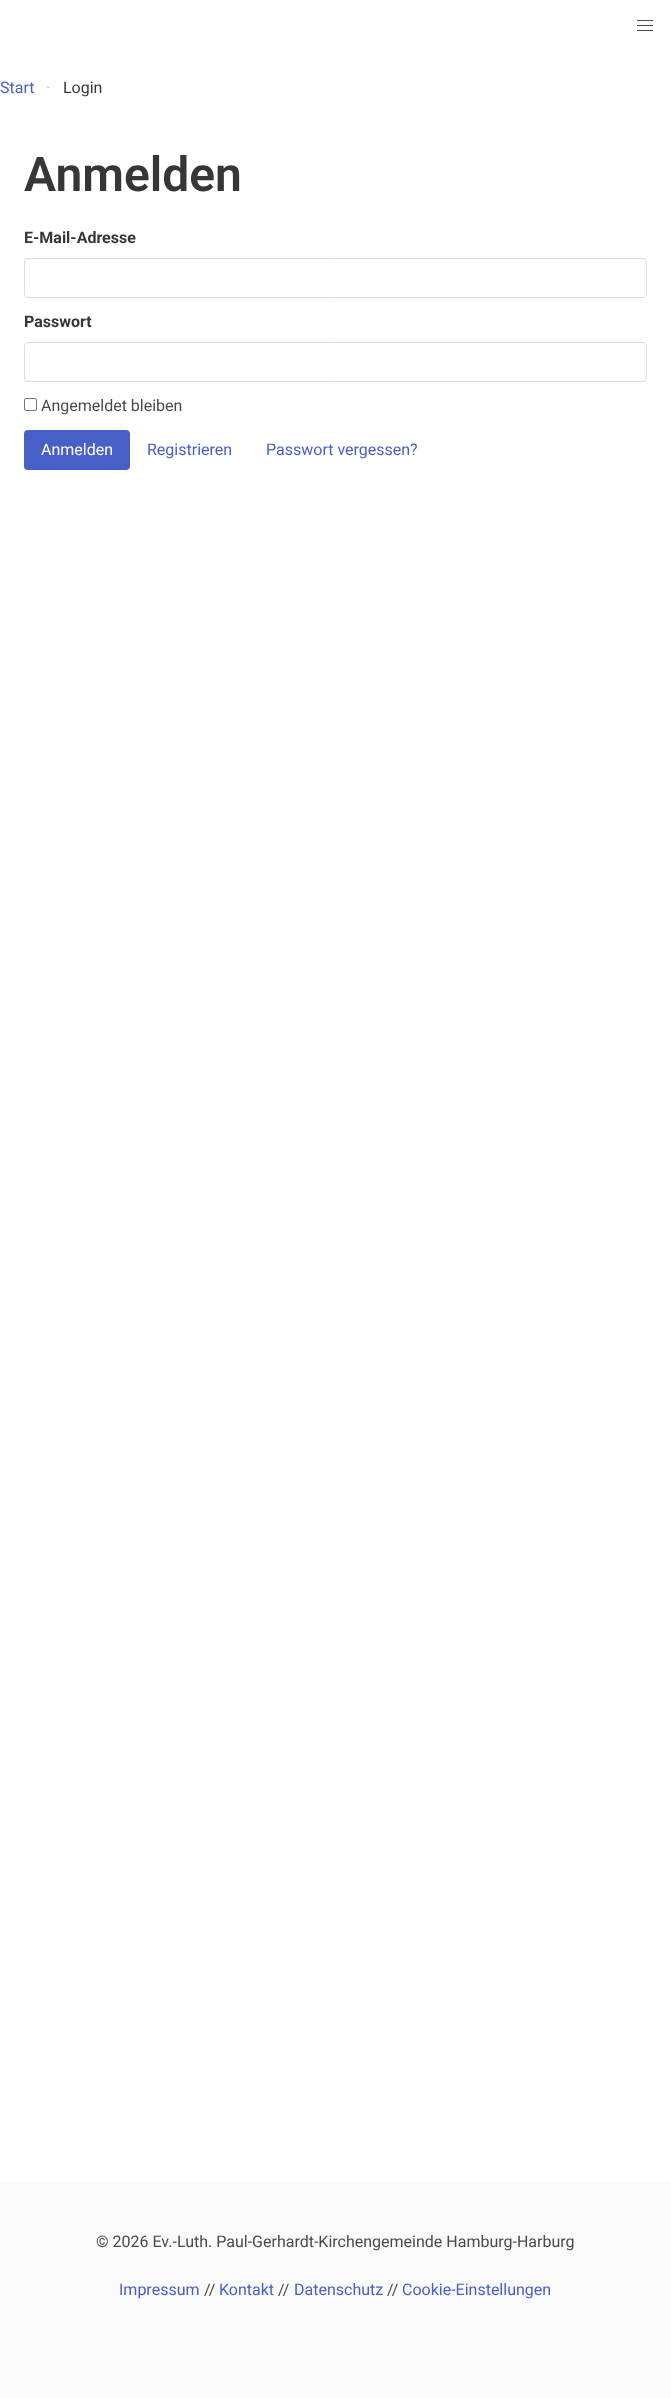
async function draw(canvas) {
	canvas.width = 671;
	canvas.height = 2398;
	const c = canvas.getContext('2d');
	c.miterLimit = 4;
	c.fontKerning = 'normal';

	c.fillStyle = '#fff';
	c.fillRect(0, 0, 671, 2398);
	for (const [x, y, w, h, color] of [
		[637, 20, 16, 1, '#4a4a4a'],
		[637, 25, 16, 1, '#4a4a4a'],
		[637, 30, 16, 1, '#4a4a4a'],
	]) {
		c.fillStyle = color;
		c.fillRect(x, y, w, h);
	}
	c.font = '16px Roboto';
	c.fillStyle = '#485fc7';
	c.fillText('Start', 0, 93);
	c.fillStyle = '#b5b5b5';
	c.fillText('·', 46, 93);
	c.fillStyle = '#363636';
	c.fillText('Login', 63, 93);
	c.font = '600 48px Roboto';
	c.fillText('Anmelden', 24, 191);
	c.font = 'bold 16px Roboto';
	c.fillText('E-Mail-Adresse', 24, 243);
	c.beginPath();
	c.roundRect(24.5, 258.5, 622, 39, 3.5);
	c.strokeStyle = '#dbdbdb';
	c.stroke();
	c.fillText('Passwort', 24, 327);
	c.beginPath();
	c.roundRect(24.5, 342.5, 622, 39, 3.5);
	c.stroke();
	c.beginPath();
	c.roundRect(24.5, 398.5, 12, 12, 1.5);
	c.strokeStyle = '#767676';
	c.stroke();
	c.font = '16px Roboto';
	c.fillStyle = '#4a4a4a';
	c.fillText('Angemeldet bleiben', 41, 411);
	c.fillStyle = '#485fc7';
	c.beginPath();
	c.roundRect(24, 430, 106, 40, 4);
	c.fill();
	c.fillStyle = '#fff';
	c.fillText('Anmelden', 41, 455);
	c.fillStyle = '#485fc7';
	c.fillText('Registrieren', 147, 455);
	c.fillText('Passwort vergessen?', 266, 455);
	c.fillStyle = '#fafafa';
	c.fillRect(0, 2182, 671, 216);
	c.fillStyle = '#4a4a4a';
	c.fillText('© 2026 Ev.-Luth. Paul-Gerhardt-Kirchengemeinde Hamburg-Harburg', 96, 2247);
	c.fillStyle = '#485fc7';
	c.fillText('Impressum', 119, 2295);
	c.fillStyle = '#4a4a4a';
	c.fillText('//', 204, 2295);
	c.fillStyle = '#485fc7';
	c.fillText('Kontakt', 219, 2295);
	c.fillStyle = '#4a4a4a';
	c.fillText('//', 278, 2295);
	c.fillStyle = '#485fc7';
	c.fillText('Datenschutz', 294, 2295);
	c.fillStyle = '#4a4a4a';
	c.fillText('//', 387, 2295);
	c.fillStyle = '#485fc7';
	c.fillText('Cookie-Einstellungen', 402, 2295);
}

draw(document.querySelector('canvas'));
